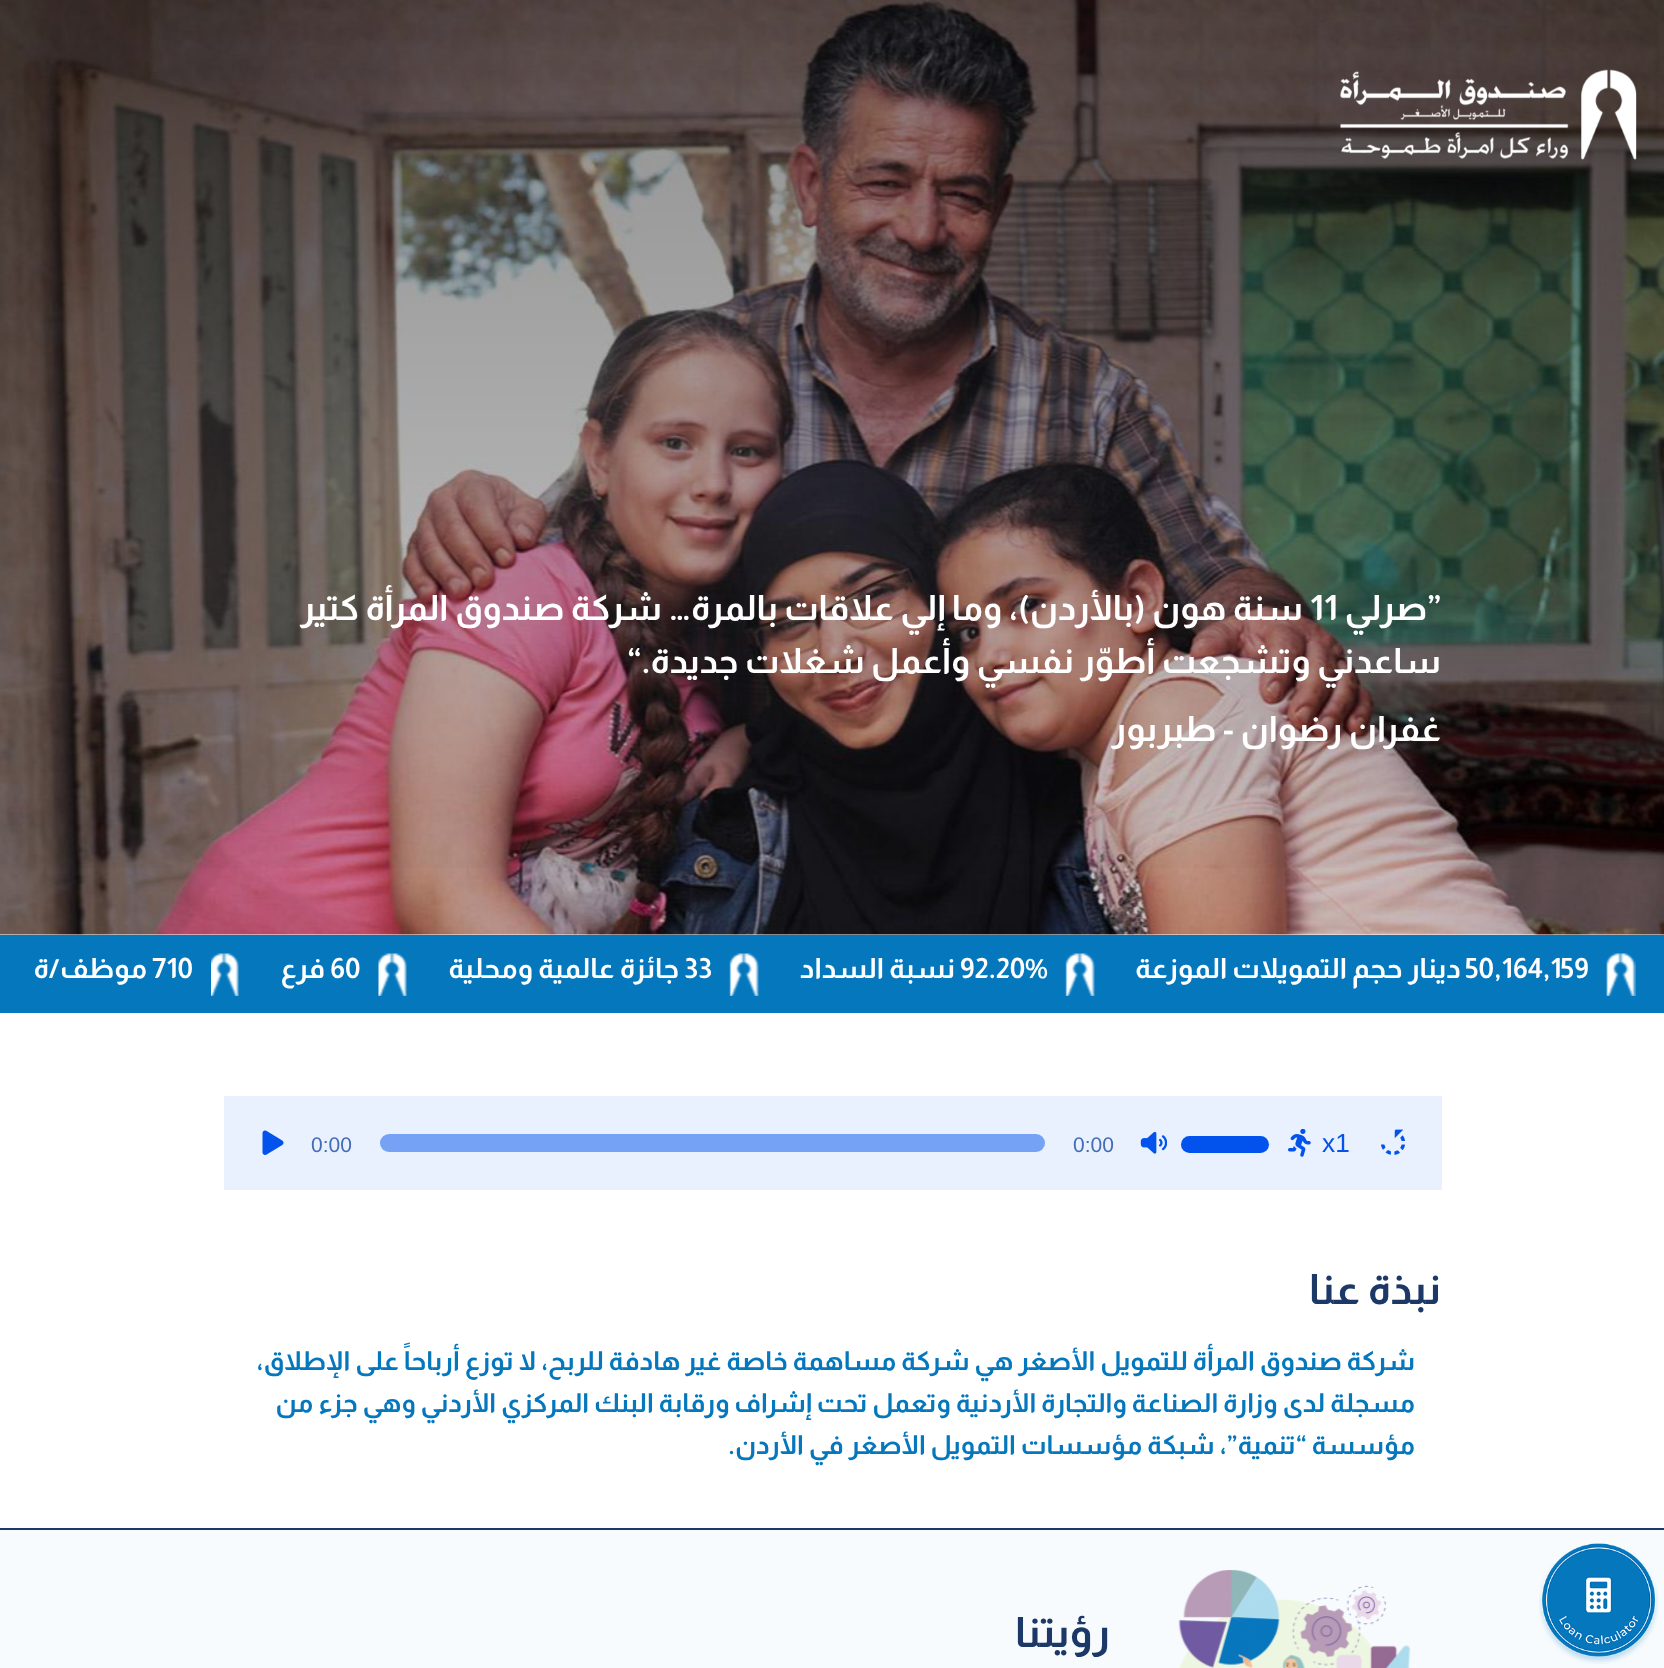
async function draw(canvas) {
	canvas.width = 1664;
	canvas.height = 1668;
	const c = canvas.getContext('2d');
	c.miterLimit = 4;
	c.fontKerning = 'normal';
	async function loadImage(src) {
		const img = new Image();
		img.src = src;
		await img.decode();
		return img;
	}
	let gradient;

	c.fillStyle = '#fff';
	c.fillRect(0, 0, 1664, 1668);
	c.drawImage(await loadImage('img3.png'), 0, 0, 1664, 935);
	gradient = c.createLinearGradient(832, 0, 832, 935);
	gradient.addColorStop(0, '#0000004d');
	gradient.addColorStop(1, '#00000000');
	c.fillStyle = gradient;
	c.fillRect(0, 0, 1664, 868);
	c.drawImage(await loadImage('img1.png'), 1340, 69, 297, 91);
	c.fillStyle = '#f7fbfd';
	c.fillRect(0, 1530, 1664, 138);
	c.drawImage(await loadImage('img2.png'), 1539, 1543, 120, 121);
	c.font = 'bold 35px Almarai';
	c.fillStyle = '#fff';
	c.fillText('”', 1427, 620);
	c.direction = 'rtl';
	c.fillText('صرلي', 1427, 620);
	c.direction = 'ltr';
	c.fillText('11', 1310, 620);
	c.direction = 'rtl';
	c.fillText('سنة هون (بالأردن)، وما إلي علاقات بالمرة… شركة صندوق المرأة كتير', 1303, 620);
	c.fillText('ساعدني وتشجعت أطوّر نفسي وأعمل شغلات جديدة.', 1441, 673);
	c.direction = 'ltr';
	c.fillText('“', 627, 673);
	c.direction = 'rtl';
	c.fillText('غفران رضوان - طبربور', 1441, 741);
	c.fillStyle = '#0477bd';
	c.fillRect(0, 935, 1664, 78);
	c.drawImage(await loadImage('img4.png'), 1606, 953, 30, 43);
	c.direction = 'ltr';
	c.font = 'bold 28px Almarai';
	c.fillStyle = '#fff';
	c.fillText('50,164,159', 1466, 978);
	c.direction = 'rtl';
	c.fillText('دينار حجم التمويلات الموزعة', 1461, 978);
	c.drawImage(await loadImage('img5.png'), 1065, 953, 30, 43);
	c.direction = 'ltr';
	c.fillText('92.20%', 960, 978);
	c.direction = 'rtl';
	c.fillText('نسبة السداد', 955, 978);
	c.drawImage(await loadImage('img5.png'), 729, 953, 30, 43);
	c.direction = 'ltr';
	c.fillText('33', 684, 978);
	c.direction = 'rtl';
	c.fillText('جائزة عالمية ومحلية', 679, 978);
	c.drawImage(await loadImage('img6.png'), 378, 953, 29, 43);
	c.direction = 'ltr';
	c.fillText('60', 330, 978);
	c.direction = 'rtl';
	c.fillText('فرع', 325, 978);
	c.drawImage(await loadImage('img7.png'), 211, 953, 28, 43);
	c.direction = 'ltr';
	c.fillText('710', 152, 978);
	c.direction = 'rtl';
	c.fillText('موظف/ة', 147, 978);
	c.fillStyle = '#e9f0fe';
	c.fillRect(224, 1096, 1218, 94);
	c.drawImage(await loadImage('img8.png'), 1381, 1129, 24, 26);
	c.direction = 'ltr';
	c.font = '26.25px Liberation Sans';
	c.fillStyle = '#0253ee';
	c.fillText('x1', 1322, 1152);
	c.drawImage(await loadImage('img9.png'), 1288, 1129, 23, 28);
	c.beginPath();
	c.roundRect(1181, 1136, 88, 17, 8.5);
	c.fill();
	c.drawImage(await loadImage('img10.png'), 1140, 1131, 27, 23);
	c.font = '21px Liberation Sans';
	c.fillStyle = '#446cb8';
	c.fillText('0:00', 1073, 1152);
	c.fillStyle = '#76a2f6';
	c.beginPath();
	c.roundRect(380, 1134, 665, 18, 9);
	c.fill();
	c.fillStyle = '#446cb8';
	c.fillText('0:00', 311, 1152);
	c.drawImage(await loadImage('img11.png'), 262, 1130, 22, 25);
	c.direction = 'rtl';
	c.font = 'bold 42px Almarai';
	c.fillStyle = '#1c3867';
	c.fillText('نبذة عنا', 1441, 1304);
	c.font = 'bold 26.25px Almarai';
	c.fillStyle = '#0477bd';
	for (const [text, x, y] of [
		['شركة صندوق المرأة للتمويل الأصغر هي شركة مساهمة خاصة غير هادفة للربح، لا توزع أرباحاً على الإطلاق،', 1415, 1370],
		['مسجلة لدى وزارة الصناعة والتجارة الأردنية وتعمل تحت إشراف ورقابة البنك المركزي الأردني وهي جزء من', 1415, 1412],
		['مؤسسة “تنمية”، شبكة مؤسسات التمويل الأصغر في الأردن.', 1415, 1454],
	]) {
		c.fillText(text, x, y);
	}
	c.fillStyle = '#1c3867';
	c.fillRect(0, 1528, 1664, 2);
	c.drawImage(await loadImage('img12.png'), 1178, 1570, 233, 98);
	c.font = 'bold 42px Almarai';
	c.fillText('رؤيتنا', 1110, 1647);
}

draw(document.querySelector('canvas'));
